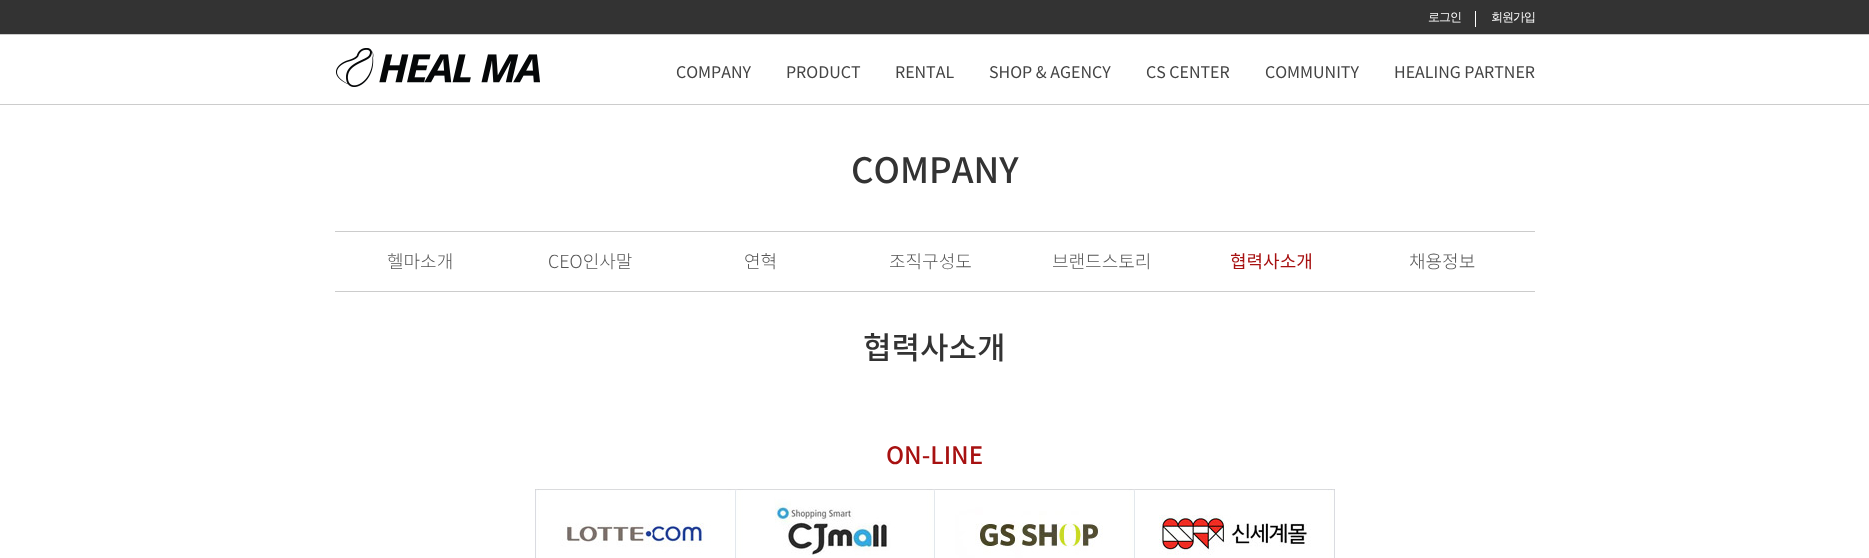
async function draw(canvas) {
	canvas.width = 1869;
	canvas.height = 558;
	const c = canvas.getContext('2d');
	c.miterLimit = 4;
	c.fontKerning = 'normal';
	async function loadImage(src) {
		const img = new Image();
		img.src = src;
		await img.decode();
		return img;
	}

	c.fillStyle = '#fff';
	c.fillRect(0, 0, 1869, 558);
	c.fillStyle = '#333';
	c.fillRect(0, 0, 1869, 34);
	c.fillStyle = '#ccc';
	c.fillRect(0, 34, 1869, 1);
	c.letterSpacing = '-1px';
	c.font = '500 12px WenQuanYi Zen Hei';
	c.fillStyle = '#fff';
	c.fillText('로그인', 1428, 21);
	c.fillRect(1475, 11, 1, 16);
	c.fillText('회원가입', 1491, 21);
	c.drawImage(await loadImage('img1.png'), 336, 48, 204, 39);
	c.letterSpacing = '0px';
	c.font = '16px Noto Sans KR';
	c.fillStyle = '#444';
	for (const [text, x, y] of [
		['COMPANY', 676, 78],
		['PRODUCT', 786, 78],
		['RENTAL', 895, 78],
		['SHOP & AGENCY', 989, 78],
		['CS CENTER', 1146, 78],
		['COMMUNITY', 1265, 78],
		['HEALING PARTNER', 1394, 78],
	]) {
		c.fillText(text, x, y);
	}
	c.fillStyle = '#ccc';
	c.fillRect(0, 104, 1869, 1);
	c.font = '500 35px Noto Sans KR';
	c.fillStyle = '#333';
	c.fillText('COMPANY', 851, 183);
	c.fillStyle = '#ccc';
	c.fillRect(335, 231, 1200, 1);
	c.fillRect(335, 291, 1200, 1);
	c.font = '300 18px Noto Sans KR';
	c.fillStyle = '#555';
	for (const [text, x, y] of [
		['헬마소개', 387, 268],
		['CEO인사말', 548, 268],
		['연혁', 744, 268],
		['조직구성도', 889, 268],
		['브랜드스토리', 1052, 268],
	]) {
		c.fillText(text, x, y);
	}
	c.font = '18px Noto Sans KR';
	c.fillStyle = '#a71111';
	c.fillText('협력사소개', 1230, 268);
	c.font = '300 18px Noto Sans KR';
	c.fillStyle = '#555';
	c.fillText('채용정보', 1409, 268);
	c.font = '500 31px Noto Sans KR';
	c.fillStyle = '#333';
	c.fillText('협력사소개', 863, 359);
	c.font = '500 24px Noto Sans KR';
	c.fillStyle = '#a71111';
	c.fillText('ON-LINE', 886, 464);
	c.drawImage(await loadImage('img2.png'), 535, 489, 800, 69);
}

draw(document.querySelector('canvas'));
